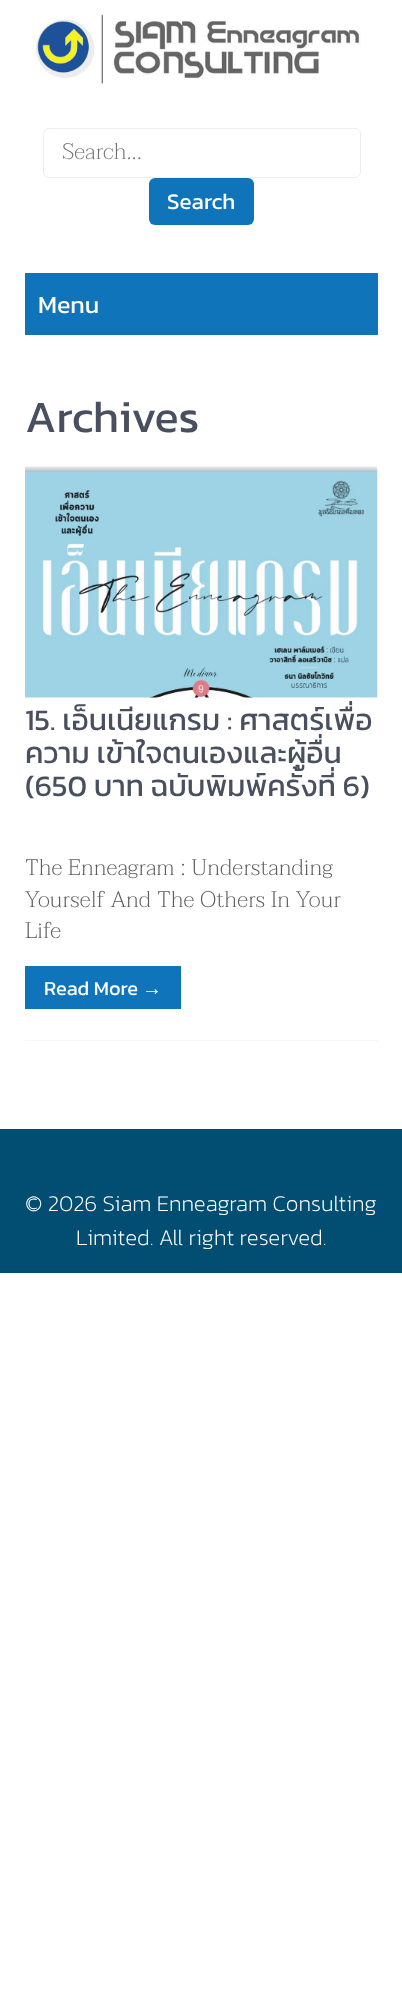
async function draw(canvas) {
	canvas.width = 402;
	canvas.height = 2013;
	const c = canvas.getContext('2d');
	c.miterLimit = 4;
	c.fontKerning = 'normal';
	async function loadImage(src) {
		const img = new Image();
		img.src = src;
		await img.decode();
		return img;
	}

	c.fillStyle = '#fff';
	c.fillRect(0, 0, 402, 2013);
	c.drawImage(await loadImage('img1.png'), 34, 14, 327, 70);
	c.beginPath();
	c.roundRect(43.5, 128.5, 317, 49, 5.5);
	c.strokeStyle = '#eee';
	c.stroke();
	c.save();
	c.beginPath();
	c.rect(63, 133, 258, 38);
	c.clip();
	c.font = '200 22.5px Taviraj';
	c.fillStyle = '#757575';
	c.fillText('Search...', 62, 159);
	c.restore();
	c.fillStyle = '#1074ba';
	c.beginPath();
	c.roundRect(149, 178, 105, 47, 6);
	c.fill();
	c.font = '22.5px Kanit';
	c.fillStyle = '#fff';
	c.fillText('Search', 167, 209);
	c.fillStyle = '#1074ba';
	c.fillRect(25, 273, 353, 62);
	c.font = '25px Kanit';
	c.fillStyle = '#fff';
	c.fillText('Menu', 38, 313);
	c.font = '45px Kanit';
	c.fillStyle = '#484f5e';
	c.fillText('Archives', 25, 432);
	c.fillStyle = '#f7f7f7';
	c.fillRect(25, 1040, 353, 1);
	c.drawImage(await loadImage('img2.png'), 25, 466, 353, 232);
	c.font = '30px Kanit';
	c.fillStyle = '#484f5e';
	for (const [text, x, y] of [
		['15. เอ็นเนียแกรม : ศาสตร์เพื่อ', 25, 730],
		['ความ เข้าใจตนเองและผู้อื่น', 25, 763],
		['(650 บาท ฉบับพิมพ์ครั้งที่ 6)', 25, 796],
	]) {
		c.fillText(text, x, y);
	}
	c.font = '200 22.5px Taviraj';
	c.fillStyle = '#5c5c5c';
	for (const [text, x, y] of [
		['The Enneagram : Understanding', 25, 875],
		['Yourself And The Others In Your', 25, 907],
		['Life', 25, 938],
	]) {
		c.fillText(text, x, y);
	}
	c.fillStyle = '#1074ba';
	c.fillRect(25, 966, 156, 43);
	c.font = '20px Kanit';
	c.fillStyle = '#fff';
	c.fillText('Read More', 44, 995);
	c.font = '20px Liberation Sans';
	c.fillText('→', 142, 995);
	c.fillStyle = '#024d72';
	c.fillRect(0, 1129, 402, 144);
	c.font = '200 22.5px Kanit';
	c.fillStyle = '#fff';
	c.fillText('© 2026 Siam Enneagram Consulting', 25, 1211);
	c.fillText('Limited. All right reserved.', 76, 1245);
}

draw(document.querySelector('canvas'));
